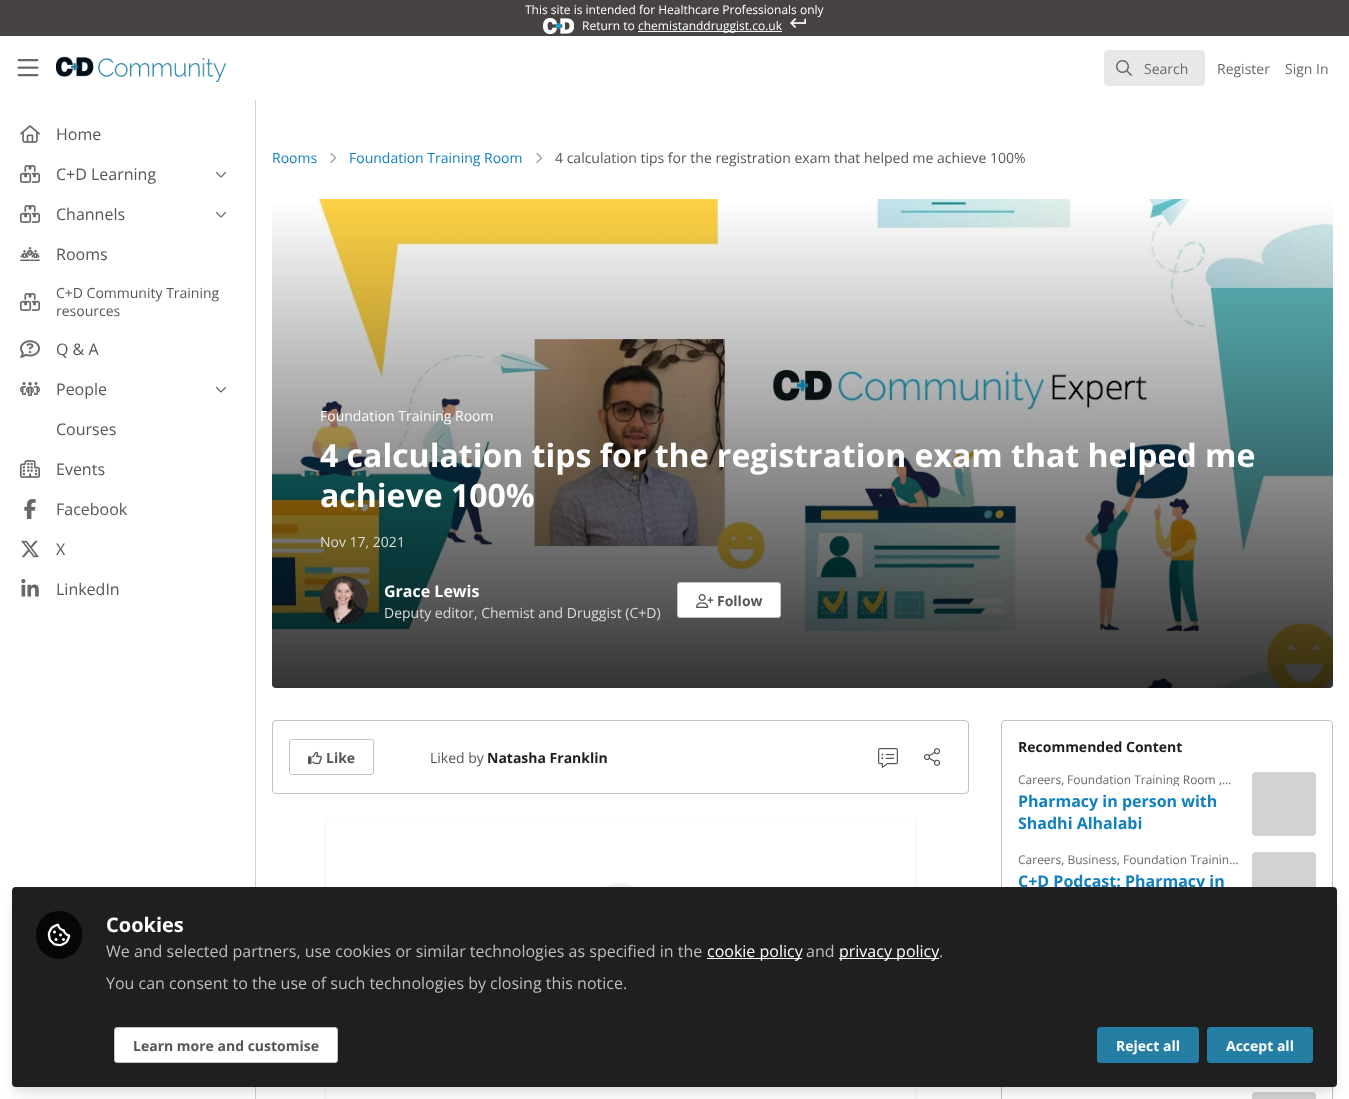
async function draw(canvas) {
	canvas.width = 1349;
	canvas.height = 1099;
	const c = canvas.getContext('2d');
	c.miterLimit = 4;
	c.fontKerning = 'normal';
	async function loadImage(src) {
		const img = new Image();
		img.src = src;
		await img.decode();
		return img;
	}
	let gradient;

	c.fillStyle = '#fff';
	c.fillRect(0, 0, 1349, 1099);
	c.fillStyle = '#484343';
	c.fillRect(0, 0, 1349, 36);
	c.font = '12px Open Sans';
	c.fillStyle = '#fff';
	c.fillText('This site is intended for Healthcare Professionals only', 525, 14);
	c.drawImage(await loadImage('img1.png'), 543, 18, 31, 16);
	c.fillText('Return to', 582, 30);
	c.fillRect(638, 31, 144, 1);
	c.fillText('chemistanddruggist.co.uk', 638, 30);
	c.drawImage(await loadImage('img2.png'), 790, 18, 16, 10);
	c.drawImage(await loadImage('img3.png'), 17, 59, 22, 18);
	c.drawImage(await loadImage('img4.png'), 56, 56, 170, 26);
	c.fillStyle = '#e8e8e8';
	c.beginPath();
	c.roundRect(1104, 50, 101, 36, 4);
	c.fill();
	c.drawImage(await loadImage('img5.png'), 1116, 60, 16, 16);
	c.font = '14px Open Sans';
	c.fillStyle = '#686868';
	for (const [text, x, y] of [
		['Search', 1144, 74],
		['Register', 1217, 74],
		['Sign In', 1285, 74],
	]) {
		c.fillText(text, x, y);
	}
	c.fillStyle = '#d2d2d2';
	c.fillRect(255, 100, 1, 999);
	c.drawImage(await loadImage('img6.png'), 20, 125, 20, 18);
	c.font = '16px Open Sans';
	c.fillStyle = '#565558';
	c.fillText('Home', 56, 140);
	c.drawImage(await loadImage('img7.png'), 20, 165, 20, 18);
	c.fillText('C+D Learning', 56, 180);
	c.drawImage(await loadImage('img8.png'), 216, 172, 10, 6);
	c.drawImage(await loadImage('img7.png'), 20, 205, 20, 18);
	c.fillText('Channels', 56, 220);
	c.drawImage(await loadImage('img8.png'), 216, 212, 10, 6);
	c.drawImage(await loadImage('img9.png'), 20, 247, 20, 14);
	c.fillText('Rooms', 56, 260);
	c.drawImage(await loadImage('img7.png'), 20, 293, 20, 18);
	c.font = '14px Open Sans';
	c.fillText('C+D Community Training', 56, 298);
	c.fillText('resources', 56, 316);
	c.drawImage(await loadImage('img10.png'), 20, 340, 20, 18);
	c.font = '16px Open Sans';
	c.fillText('Q & A', 56, 355);
	c.drawImage(await loadImage('img11.png'), 20, 382, 20, 14);
	c.fillText('People', 56, 395);
	c.drawImage(await loadImage('img8.png'), 216, 387, 10, 6);
	c.fillText('Courses', 56, 435);
	c.drawImage(await loadImage('img12.png'), 20, 460, 20, 18);
	c.fillText('Events', 56, 475);
	c.drawImage(await loadImage('img13.png'), 24, 499, 12, 20);
	c.fillText('Facebook', 56, 515);
	c.drawImage(await loadImage('img14.png'), 21, 540, 18, 18);
	c.fillText('X', 56, 555);
	c.drawImage(await loadImage('img15.png'), 21, 579, 18, 18);
	c.fillText('LinkedIn', 56, 595);
	c.font = '14px Open Sans';
	c.fillStyle = '#1280be';
	c.fillText('Rooms', 272, 163);
	c.beginPath();
	c.moveTo(331, 153.5);
	c.lineTo(335.5, 158);
	c.lineTo(331, 162.5);
	c.strokeStyle = '#9f9f9f';
	c.lineWidth = 1.3;
	c.lineCap = 'round';
	c.lineJoin = 'round';
	c.stroke();
	c.fillText('Foundation Training Room', 349, 163);
	c.beginPath();
	c.moveTo(537, 153.5);
	c.lineTo(541.5, 158);
	c.lineTo(537, 162.5);
	c.stroke();
	c.fillStyle = '#565558';
	c.fillText('4 calculation tips for the registration exam that helped me achieve 100%', 555, 163);
	c.drawImage(await loadImage('img16.png'), 272, 199, 1061, 489);
	gradient = c.createLinearGradient(803, 199, 803, 688);
	gradient.addColorStop(0, '#00000000');
	gradient.addColorStop(1, '#000000cc');
	c.fillStyle = gradient;
	c.beginPath();
	c.roundRect(272, 199, 1061, 489, 4);
	c.fill();
	c.fillStyle = '#fff';
	c.fillText('Foundation Training Room', 320, 421);
	c.font = 'bold 32px Open Sans';
	c.fillText('4 calculation tips for the registration exam that helped me', 320, 467);
	c.fillText('achieve 100%', 320, 507);
	c.font = '14px Open Sans';
	c.fillStyle = '#dbdcd5';
	c.fillText('Nov 17, 2021', 320, 547);
	c.drawImage(await loadImage('img17.png'), 320, 576, 48, 48);
	c.font = 'bold 16px Open Sans';
	c.fillStyle = '#fff';
	c.fillText('Grace Lewis', 384, 597);
	c.font = '14px Open Sans';
	c.fillStyle = '#dbdbdb';
	c.fillText('Deputy editor, Chemist and Druggist (C+D)', 384, 618);
	c.fillStyle = '#fff';
	c.beginPath();
	c.roundRect(677.5, 582.5, 103, 35, 2.5);
	c.fill();
	c.strokeStyle = '#c3c3c3';
	c.lineWidth = 1;
	c.lineJoin = 'miter';
	c.stroke();
	c.drawImage(await loadImage('img18.png'), 696, 594, 18, 14);
	c.font = 'bold 14px Open Sans';
	c.fillStyle = '#565558';
	c.fillText('Follow', 717, 606);
	c.beginPath();
	c.roundRect(272.5, 720.5, 696, 73, 3.5);
	c.stroke();
	c.beginPath();
	c.roundRect(289.5, 739.5, 84, 35, 2.5);
	c.stroke();
	c.drawImage(await loadImage('img19.png'), 308, 751, 14, 14);
	c.fillText('Like', 326, 763);
	c.font = '14px Open Sans';
	c.fillText('Liked by', 430, 763);
	c.font = 'bold 14px Open Sans';
	c.fillStyle = '#1f1f1f';
	c.fillText('Natasha Franklin', 487, 763);
	c.drawImage(await loadImage('img20.png'), 878, 748, 20, 20);
	c.drawImage(await loadImage('img21.png'), 923, 748, 18, 18);
	c.fillStyle = '#0000001a';
	c.filter = 'blur(1.5px)';
	c.beginPath();
	c.roundRect(326, 819, 589, 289, 4);
	c.fill();
	c.filter = 'none';
	c.fillStyle = '#fff';
	c.beginPath();
	c.roundRect(326, 818, 589, 281, [4, 4, 0, 0]);
	c.fill();
	c.fillStyle = '#f2f2f2';
	c.beginPath();
	c.arc(620, 915, 32, 0, 2 * Math.PI);
	c.fill();
	c.beginPath();
	c.roundRect(1001.5, 720.5, 331, 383, 3.5);
	c.stroke();
	c.fillStyle = '#1f1f1f';
	c.fillText('Recommended Content', 1018, 752);
	c.font = '12px Open Sans';
	c.fillStyle = '#686868';
	c.fillText('Careers,', 1018, 784);
	c.save();
	c.beginPath();
	c.rect(1018, 774, 222, 12);
	c.clip();
	c.fillText('Foundation Training Room', 1067, 784);
	c.restore();
	c.fillText(',…', 1219, 784);
	c.font = 'bold 16px Open Sans';
	c.fillStyle = '#1280be';
	c.fillText('Pharmacy in person with', 1018, 807);
	c.fillText('Shadhi Alhalabi', 1018, 829);
	c.fillStyle = '#d2d2d2';
	c.beginPath();
	c.roundRect(1252, 772, 64, 64, 4);
	c.fill();
	c.font = '12px Open Sans';
	c.fillStyle = '#686868';
	c.fillText('Careers, Business, Foundation Trainin…', 1018, 864);
	c.font = 'bold 16px Open Sans';
	c.fillStyle = '#1280be';
	c.fillText('C+D Podcast: Pharmacy in', 1018, 887);
	c.fillStyle = '#d2d2d2';
	c.beginPath();
	c.roundRect(1252, 852, 64, 64, 4);
	c.fill();
	c.beginPath();
	c.roundRect(1252, 1092, 64, 7, [4, 4, 0, 0]);
	c.fill();
	c.fillStyle = '#0000000d';
	c.filter = 'blur(3px)';
	c.beginPath();
	c.roundRect(14, 893, 1321, 196, 2);
	c.fill();
	c.filter = 'none';
	c.fillStyle = '#0000001a';
	c.filter = 'blur(7.5px)';
	c.beginPath();
	c.roundRect(15, 900, 1319, 194, 1);
	c.fill();
	c.filter = 'none';
	c.fillStyle = '#1f1f1f';
	c.beginPath();
	c.roundRect(12, 887, 1325, 200, 4);
	c.fill();
	c.fillStyle = '#060606';
	c.beginPath();
	c.roundRect(36, 911, 46, 48, 23);
	c.fill();
	c.drawImage(await loadImage('img22.png'), 47, 923, 24, 24);
	c.font = 'bold 20px Open Sans';
	c.fillStyle = '#fff';
	c.fillText('Cookies', 106, 932);
	c.font = '16px Open Sans';
	c.fillStyle = '#bebebe';
	c.fillText('We and selected partners, use cookies or similar technologies as specified in the', 106, 957);
	c.fillStyle = '#fff';
	c.fillRect(707, 958, 95, 1);
	c.fillText('cookie policy', 707, 957);
	c.fillStyle = '#bebebe';
	c.fillText('and', 806, 957);
	c.fillStyle = '#fff';
	c.fillRect(839, 958, 100, 1);
	c.fillText('privacy policy', 839, 957);
	c.fillStyle = '#bebebe';
	c.fillText('.', 939, 957);
	c.fillText('You can consent to the use of such technologies by closing this notice.', 106, 989);
	c.fillStyle = '#fff';
	c.beginPath();
	c.roundRect(114.5, 1027.5, 223, 35, 2.5);
	c.fill();
	c.stroke();
	c.font = 'bold 14px Open Sans';
	c.fillStyle = '#565558';
	c.fillText('Learn more and customise', 133, 1051);
	c.fillStyle = '#257ea4';
	c.beginPath();
	c.roundRect(1097.5, 1027.5, 101, 35, 2.5);
	c.fill();
	c.strokeStyle = '#257ea4';
	c.stroke();
	c.fillStyle = '#fff';
	c.fillText('Reject all', 1116, 1051);
	c.fillStyle = '#257ea4';
	c.beginPath();
	c.roundRect(1207.5, 1027.5, 105, 35, 2.5);
	c.fill();
	c.stroke();
	c.fillStyle = '#fff';
	c.fillText('Accept all', 1226, 1051);
}

draw(document.querySelector('canvas'));
